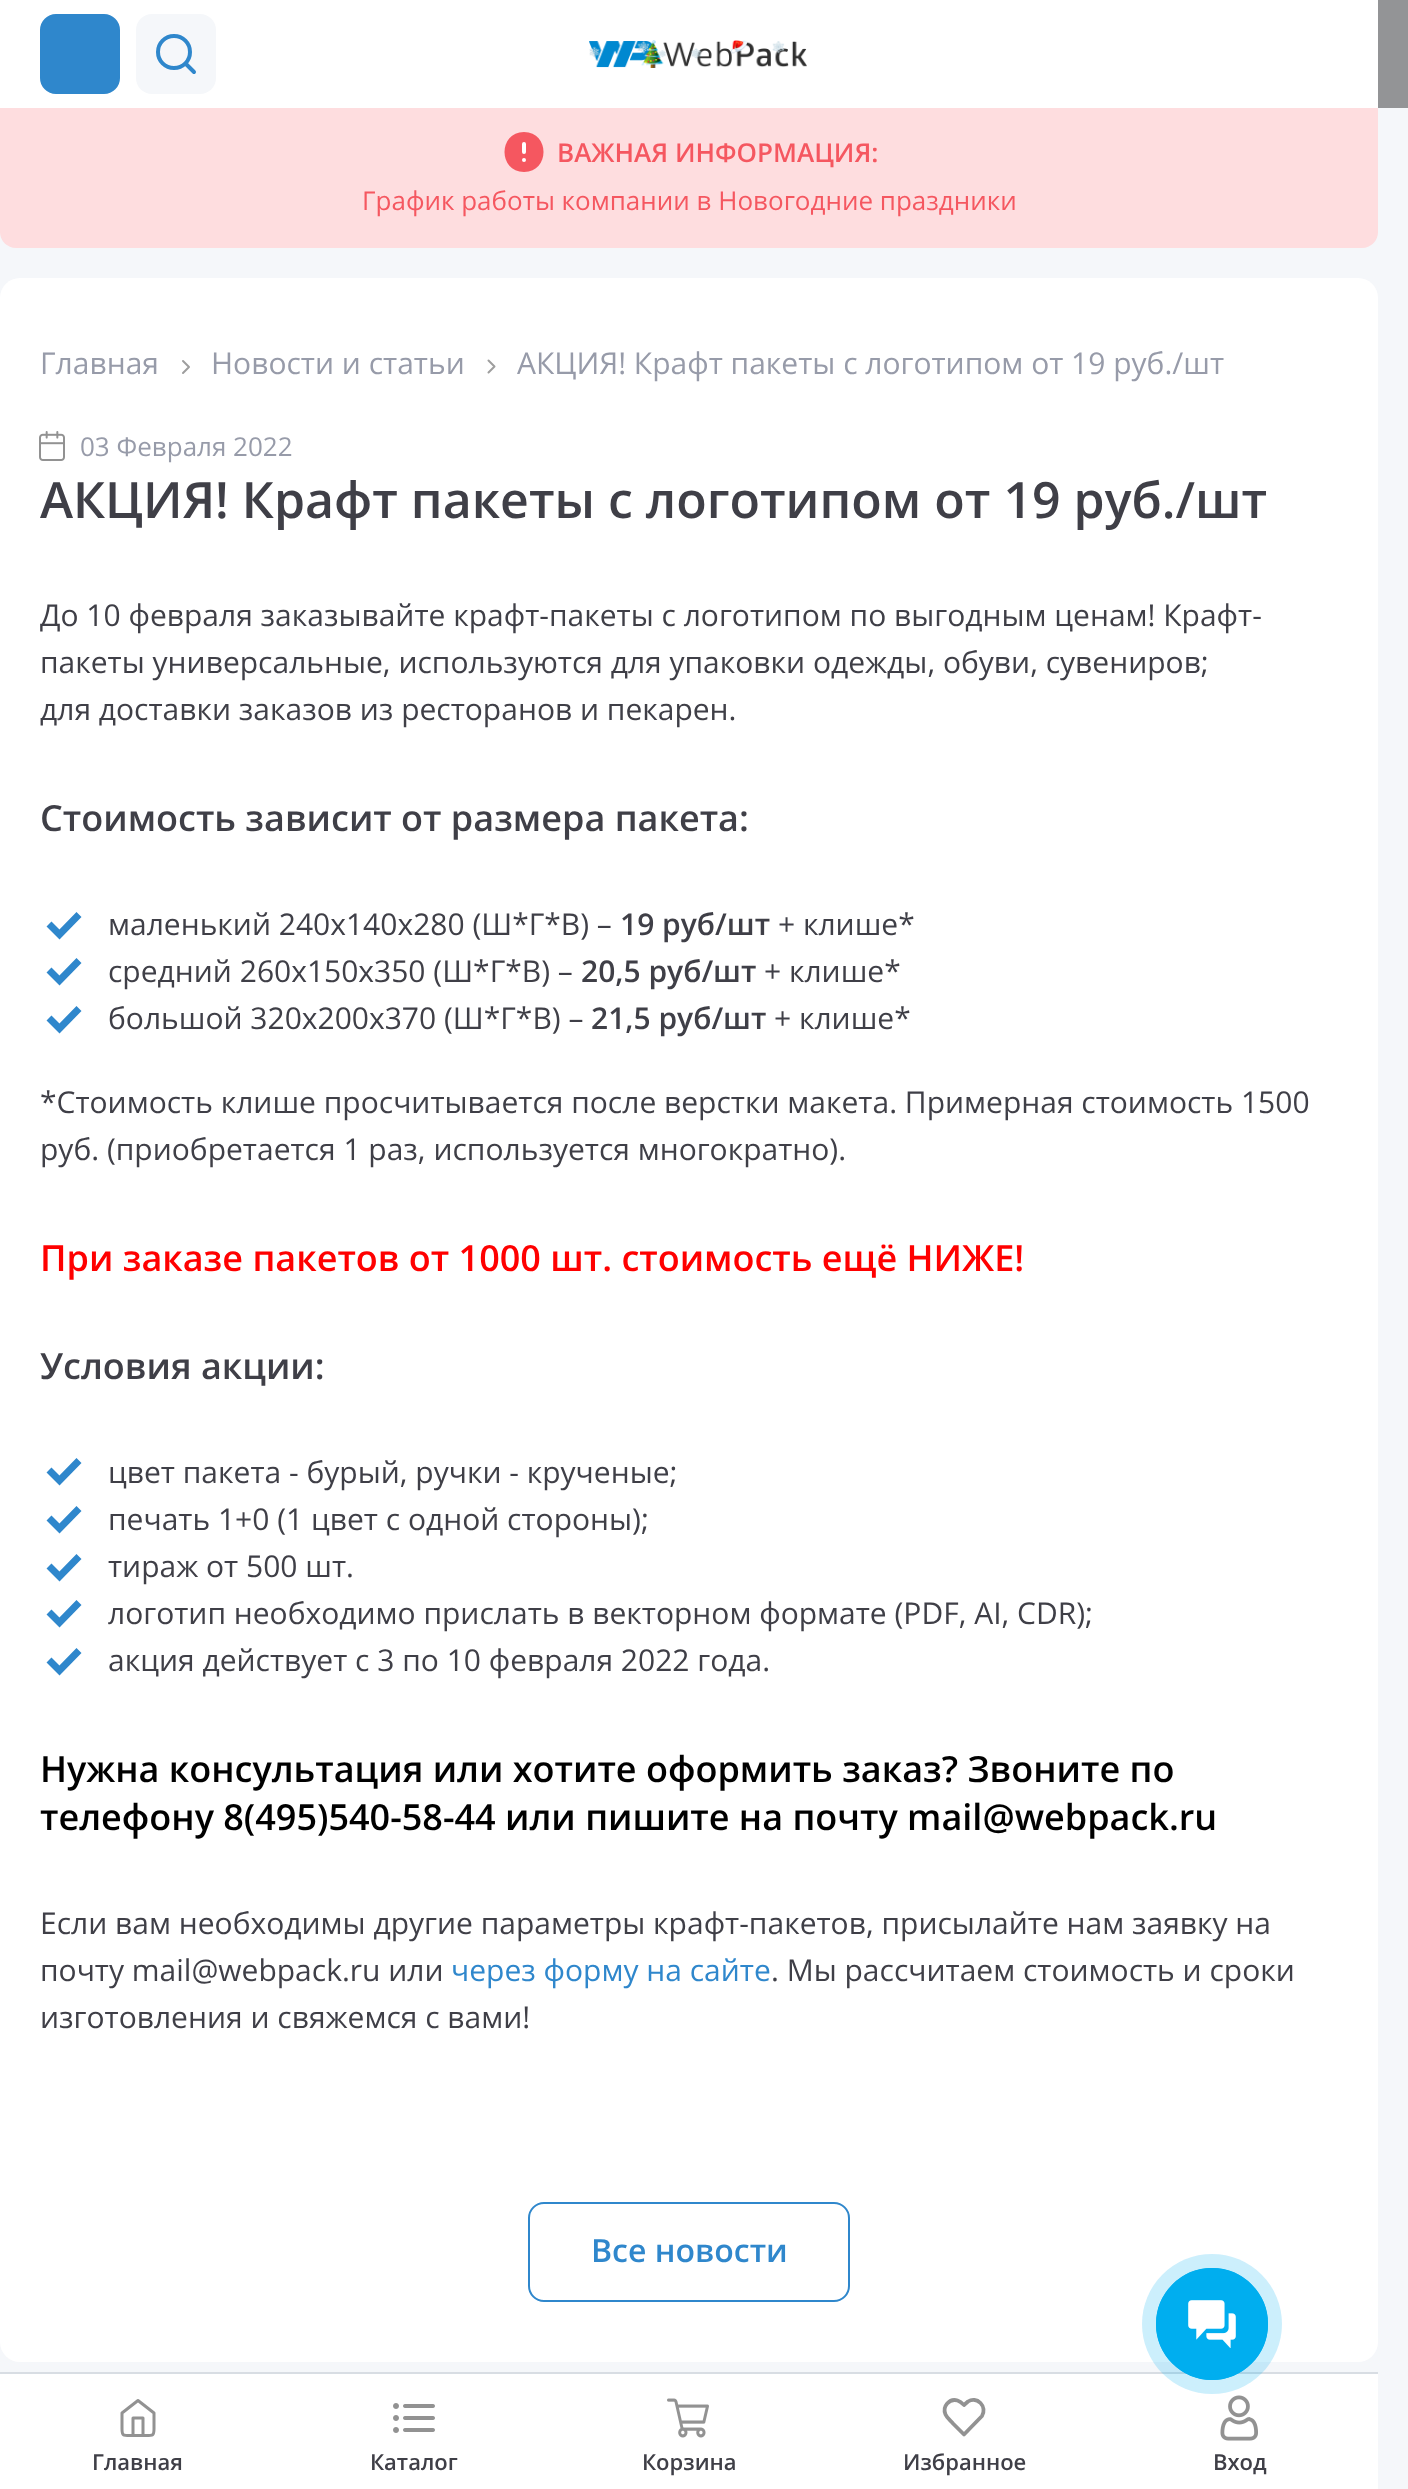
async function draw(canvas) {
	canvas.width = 1408;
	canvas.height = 2489;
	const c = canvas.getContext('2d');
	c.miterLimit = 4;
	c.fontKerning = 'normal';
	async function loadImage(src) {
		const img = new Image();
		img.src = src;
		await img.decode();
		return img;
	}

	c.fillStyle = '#f5f7fa';
	c.fillRect(0, 0, 1408, 2489);
	c.fillStyle = '#fedddf';
	c.beginPath();
	c.roundRect(0, 108, 1378, 140, [0, 0, 16, 16]);
	c.fill();
	c.fillStyle = '#f55760';
	c.beginPath();
	c.moveTo(524, 172);
	c.bezierCurveTo(550, 172, 550, 132, 524, 132);
	c.bezierCurveTo(498, 132, 498, 172, 524, 172);
	c.closePath();
	c.fill();
	c.beginPath();
	c.moveTo(524, 144);
	c.lineTo(524, 152);
	c.moveTo(524, 160);
	c.lineTo(524, 160);
	c.strokeStyle = '#fff';
	c.lineWidth = 4;
	c.lineCap = 'round';
	c.lineJoin = 'round';
	c.stroke();
	c.font = '600 26px Open Sans';
	c.fillText('ВАЖНАЯ ИНФОРМАЦИЯ:', 557, 162);
	c.font = '26px Open Sans';
	c.fillText('График работы компании в Новогодние праздники', 362, 210);
	c.fillStyle = '#fff';
	c.beginPath();
	c.roundRect(0, 278, 1378, 2084, 20);
	c.fill();
	c.font = '30px Open Sans';
	c.fillStyle = '#979ba9';
	c.fillText('Главная', 40, 374);
	c.beginPath();
	c.moveTo(183, 373);
	c.lineTo(189, 367);
	c.lineTo(183, 361);
	c.strokeStyle = '#9e9e9e';
	c.lineWidth = 2;
	c.stroke();
	c.fillText('Новости и статьи', 211, 374);
	c.beginPath();
	c.moveTo(488.5, 372.5);
	c.lineTo(494.5, 366.5);
	c.lineTo(488.5, 360.5);
	c.stroke();
	c.fillText('АКЦИЯ! Крафт пакеты с логотипом от 19 руб./шт', 517, 374);
	c.drawImage(await loadImage('img1.png'), 39, 431, 26, 30);
	c.font = '26px Open Sans';
	c.fillText('03 Февраля 2022', 80, 456);
	c.font = '600 50px Open Sans';
	c.fillStyle = '#3f3f47';
	c.fillText('АКЦИЯ! Крафт пакеты с логотипом от 19 руб./шт', 40, 518);
	c.font = '30px Open Sans';
	for (const [text, x, y] of [
		['До 10 февраля заказывайте крафт-пакеты с логотипом по выгодным ценам! Крафт-', 40, 626],
		['пакеты универсальные, используются для упаковки одежды, обуви, сувениров;', 40, 673],
		['для доставки заказов из ресторанов и пекарен.', 40, 720],
	]) {
		c.fillText(text, x, y);
	}
	c.font = '600 36px Open Sans';
	c.fillText('Стоимость зависит от размера пакета:', 40, 831);
	c.beginPath();
	c.moveTo(49, 924);
	c.lineTo(59.5, 934.5);
	c.lineTo(79, 914.5);
	c.strokeStyle = '#2f87cc';
	c.lineWidth = 7;
	c.lineCap = 'butt';
	c.lineJoin = 'miter';
	c.stroke();
	c.font = '30px Open Sans';
	c.fillText('маленький 240x140x280 (Ш*Г*В) –', 108, 935);
	c.font = '600 30px Open Sans';
	c.fillText('19 руб/шт', 620, 935);
	c.font = '30px Open Sans';
	c.fillText('+ клише*', 778, 935);
	c.beginPath();
	c.moveTo(49, 970);
	c.lineTo(59.5, 980.5);
	c.lineTo(79, 960.5);
	c.stroke();
	c.fillText('средний 260x150x350 (Ш*Г*В) –', 108, 982);
	c.font = '600 30px Open Sans';
	c.fillText('20,5 руб/шт', 581, 982);
	c.font = '30px Open Sans';
	c.fillText('+ клише*', 764, 982);
	c.beginPath();
	c.moveTo(49, 1018);
	c.lineTo(59.5, 1028.5);
	c.lineTo(79, 1008.5);
	c.stroke();
	c.fillText('большой 320x200x370 (Ш*Г*В) –', 108, 1029);
	c.font = '600 30px Open Sans';
	c.fillText('21,5 руб/шт', 591, 1029);
	c.font = '30px Open Sans';
	for (const [text, x, y] of [
		['+ клише*', 774, 1029],
		['*Стоимость клише просчитывается после верстки макета. Примерная стоимость 1500', 40, 1113],
		['руб. (приобретается 1 раз, используется многократно).', 40, 1160],
	]) {
		c.fillText(text, x, y);
	}
	c.font = '600 36px Open Sans';
	c.fillStyle = '#f00';
	c.fillText('При заказе пакетов от 1000 шт. стоимость ещё НИЖЕ!', 40, 1271);
	c.fillStyle = '#3f3f47';
	c.fillText('Условия акции:', 40, 1379);
	c.beginPath();
	c.moveTo(49, 1470);
	c.lineTo(59.5, 1480.5);
	c.lineTo(79, 1460.5);
	c.stroke();
	c.font = '30px Open Sans';
	c.fillText('цвет пакета - бурый, ручки - крученые;', 108, 1483);
	c.beginPath();
	c.moveTo(49, 1518);
	c.lineTo(59.5, 1528.5);
	c.lineTo(79, 1508.5);
	c.stroke();
	c.fillText('печать 1+0 (1 цвет с одной стороны);', 108, 1530);
	c.beginPath();
	c.moveTo(49, 1566);
	c.lineTo(59.5, 1576.5);
	c.lineTo(79, 1556.5);
	c.stroke();
	c.fillText('тираж от 500 шт.', 108, 1577);
	c.beginPath();
	c.moveTo(49, 1612);
	c.lineTo(59.5, 1622.5);
	c.lineTo(79, 1602.5);
	c.stroke();
	c.fillText('логотип необходимо прислать в векторном формате (PDF, AI, CDR);', 108, 1624);
	c.beginPath();
	c.moveTo(49, 1660);
	c.lineTo(59.5, 1670.5);
	c.lineTo(79, 1650.5);
	c.stroke();
	c.fillText('акция действует с 3 по 10 февраля 2022 года.', 108, 1671);
	c.font = '600 36px Open Sans';
	c.fillStyle = '#000';
	c.fillText('Нужна консультация или хотите оформить заказ? Звоните по', 40, 1782);
	c.fillText('телефону 8(495)540-58-44 или пишите на почту mail@webpack.ru', 40, 1830);
	c.font = '30px Open Sans';
	c.fillStyle = '#3f3f47';
	c.fillText('Если вам необходимы другие параметры крафт-пакетов, присылайте нам заявку на', 40, 1934);
	c.fillText('почту mail@webpack.ru или', 40, 1981);
	c.fillStyle = '#2f87cc';
	c.fillText('через форму на сайте', 451, 1981);
	c.fillStyle = '#3f3f47';
	c.fillText('. Мы рассчитаем стоимость и сроки', 771, 1981);
	c.fillText('изготовления и свяжемся с вами!', 40, 2028);
	c.beginPath();
	c.roundRect(529, 2203, 320, 98, 15);
	c.lineWidth = 2;
	c.stroke();
	c.font = '600 32px Open Sans';
	c.fillStyle = '#2f87cc';
	c.fillText('Все новости', 591, 2262);
	c.fillStyle = '#fff';
	c.fillRect(0, 0, 1378, 108);
	c.fillStyle = '#939496';
	c.fillRect(1378, 0, 30, 108);
	c.fillStyle = '#2f87cc';
	c.beginPath();
	c.roundRect(41, 15, 78, 78, 15);
	c.fill();
	c.stroke();
	c.fillStyle = '#f5f7fa';
	c.beginPath();
	c.roundRect(136, 14, 80, 80, 16);
	c.fill();
	c.beginPath();
	c.moveTo(174, 68);
	c.bezierCurveTo(183, 68, 190, 61, 190, 52);
	c.bezierCurveTo(190, 43, 183, 36, 174, 36);
	c.bezierCurveTo(165, 36, 158, 43, 158, 52);
	c.bezierCurveTo(158, 61, 165, 68, 174, 68);
	c.closePath();
	c.moveTo(194, 72);
	c.lineTo(185.5, 63.5);
	c.lineWidth = 4;
	c.lineCap = 'round';
	c.lineJoin = 'round';
	c.stroke();
	c.drawImage(await loadImage('img2.png'), 589, 40, 218, 28);
	c.fillStyle = '#fff';
	c.fillRect(0, 2374, 1378, 115);
	c.fillStyle = '#d8dde3';
	c.fillRect(0, 2372, 1378, 2);
	c.beginPath();
	c.moveTo(122, 2413);
	c.lineTo(138, 2400.5);
	c.lineTo(154, 2413);
	c.lineTo(154, 2429);
	c.bezierCurveTo(154, 2435.5, 153, 2435.5, 146, 2435.5);
	c.lineTo(130, 2435.5);
	c.bezierCurveTo(123, 2435.5, 122, 2435.5, 122, 2429);
	c.closePath();
	c.moveTo(133, 2435.5);
	c.lineTo(133, 2418);
	c.lineTo(143, 2418);
	c.lineTo(143, 2435.5);
	c.strokeStyle = '#929292';
	c.lineWidth = 3;
	c.stroke();
	c.font = '600 22px Open Sans';
	c.fillStyle = '#3f3f47';
	c.fillText('Главная', 92, 2470);
	c.drawImage(await loadImage('img3.png'), 393, 2403, 42, 30);
	c.fillText('Каталог', 370, 2470);
	c.drawImage(await loadImage('img4.png'), 667, 2398, 42, 40);
	c.fillText('Корзина', 642, 2470);
	c.beginPath();
	c.moveTo(980.5, 2403);
	c.bezierCurveTo(977, 2399.5, 972, 2399, 968, 2401.5);
	c.lineTo(964, 2405);
	c.bezierCurveTo(962, 2403, 960.5, 2401.5, 957.5, 2400.5);
	c.bezierCurveTo(949.5, 2398, 942, 2406.5, 945.5, 2414.5);
	c.bezierCurveTo(947, 2418, 950.5, 2420.5, 953, 2423.5);
	c.lineTo(964, 2434.5);
	c.lineTo(982, 2416);
	c.bezierCurveTo(984.5, 2412, 984, 2406.5, 980.5, 2403);
	c.closePath();
	c.lineWidth = 3.8;
	c.stroke();
	c.fillText('Избранное', 903, 2470);
	c.drawImage(await loadImage('img5.png'), 1220, 2395, 38, 46);
	c.fillText('Вход', 1213, 2470);
	c.fillStyle = '#00aeef33';
	c.beginPath();
	c.arc(1212, 2324, 70, 0, 2 * Math.PI);
	c.fill();
	c.beginPath();
	c.arc(1212, 2324, 55, 0, 2 * Math.PI);
	c.strokeStyle = '#00aeef';
	c.lineWidth = 2;
	c.stroke();
	c.fillStyle = '#00aeef';
	c.beginPath();
	c.arc(1212, 2324, 56, 0, 2 * Math.PI);
	c.fill();
	c.drawImage(await loadImage('img6.png'), 1188, 2300, 48, 48);
}

draw(document.querySelector('canvas'));
